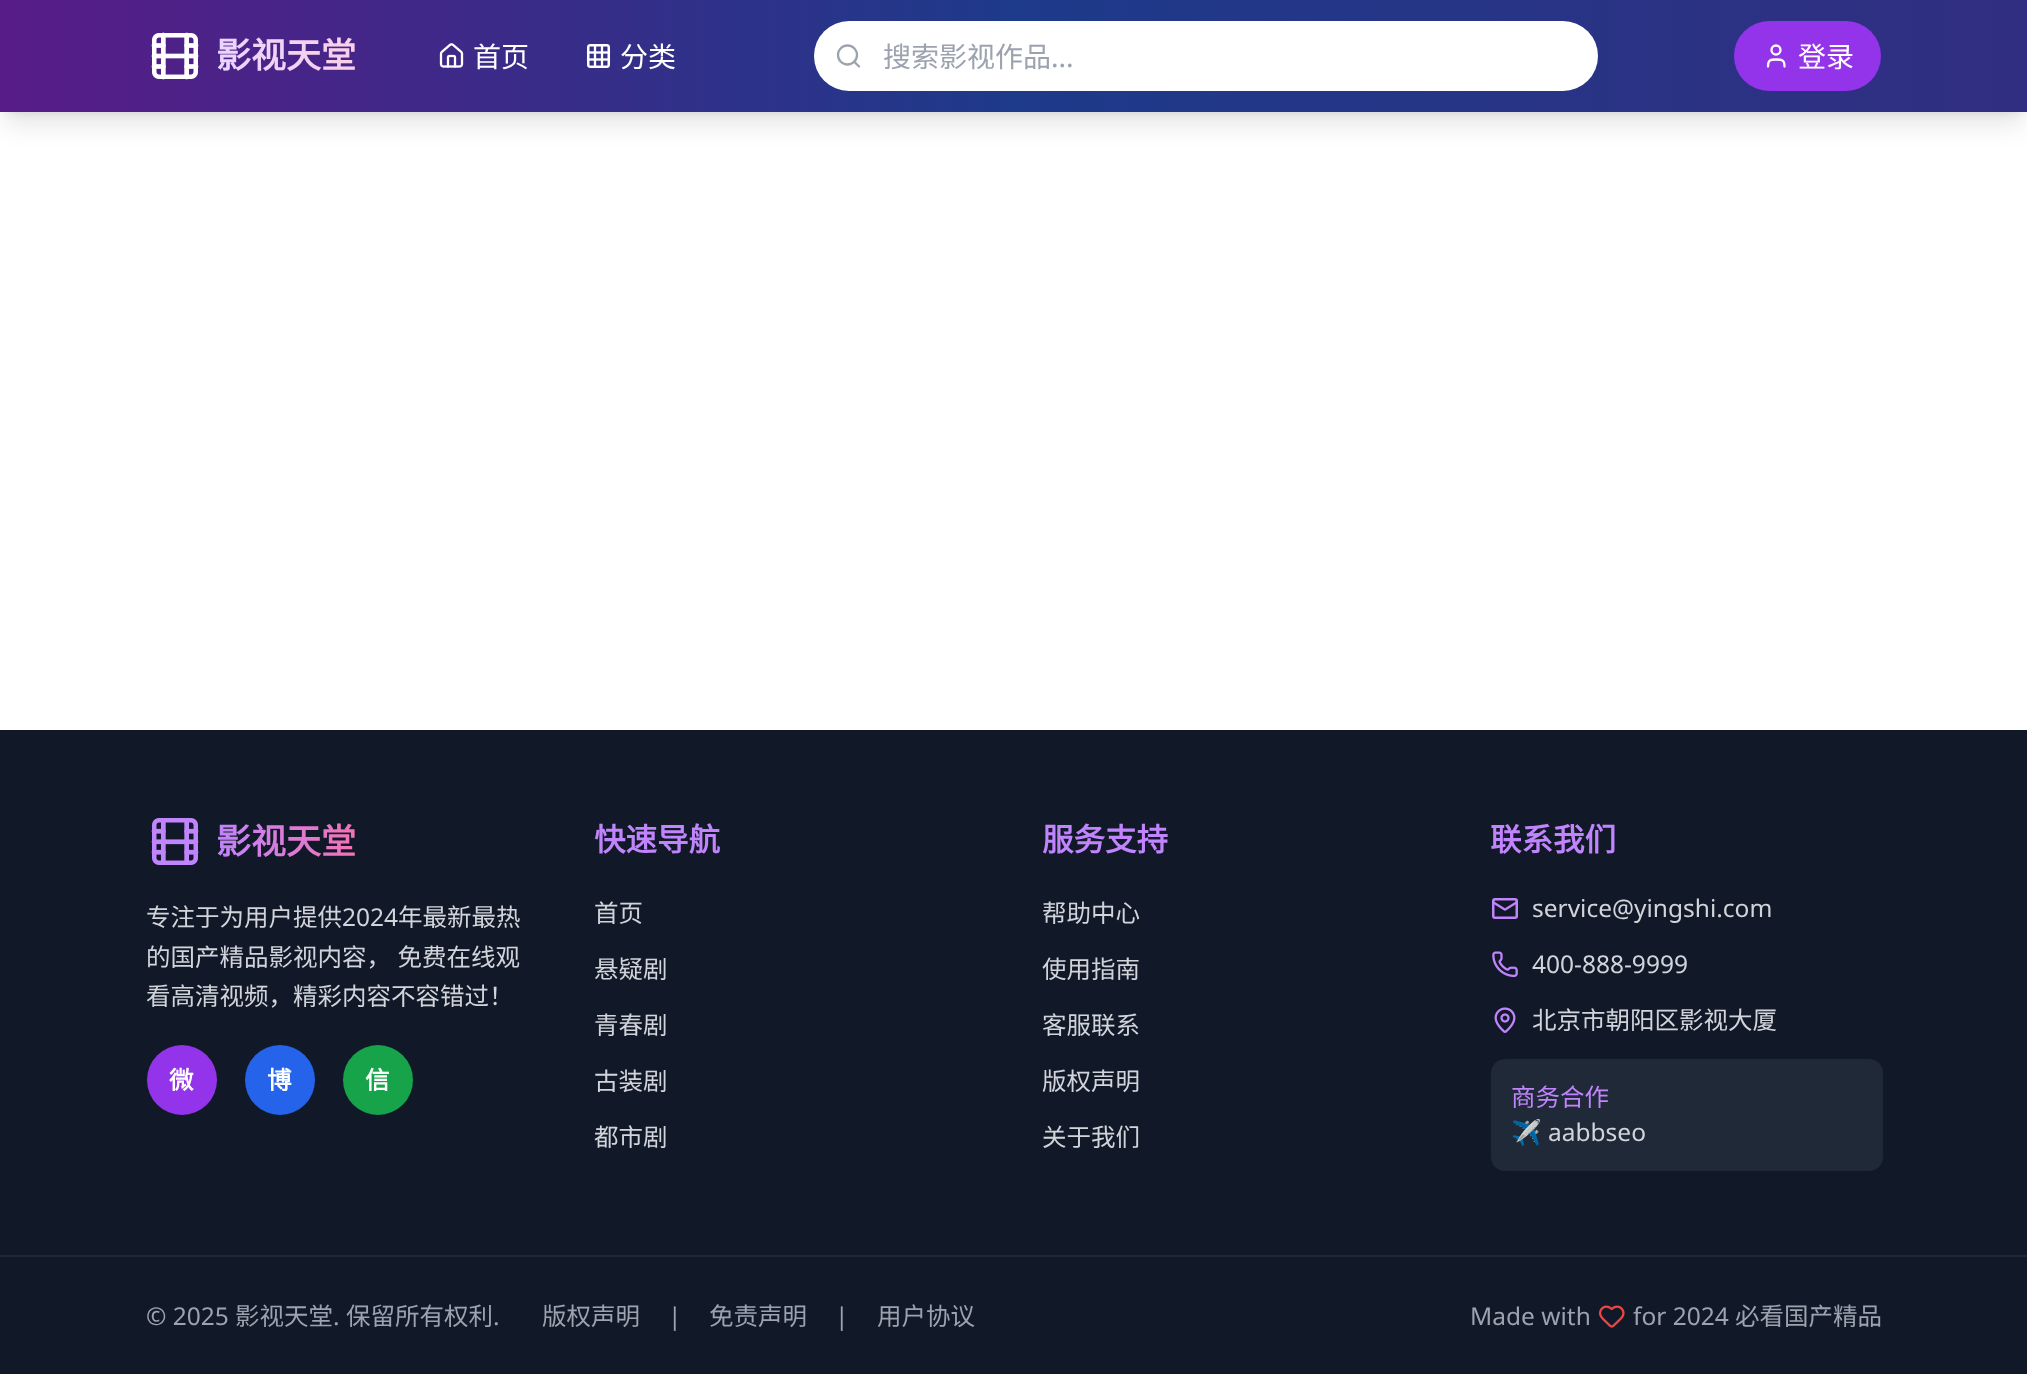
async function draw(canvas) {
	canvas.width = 2027;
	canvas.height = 1374;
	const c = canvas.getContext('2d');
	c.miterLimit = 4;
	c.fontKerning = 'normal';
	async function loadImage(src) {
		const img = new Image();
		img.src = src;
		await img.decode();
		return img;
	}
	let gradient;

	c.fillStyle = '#fff';
	c.fillRect(0, 0, 2027, 1374);
	c.fillStyle = '#0000001a';
	c.filter = 'blur(5px)';
	c.beginPath();
	c.rect(7, 14, 2014, 98);
	c.fill();
	c.filter = 'none';
	c.filter = 'blur(13px)';
	c.beginPath();
	c.rect(5, 23, 2018, 101);
	c.fill();
	c.filter = 'none';
	gradient = c.createLinearGradient(0, 56, 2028, 56);
	gradient.addColorStop(0, '#581c87');
	gradient.addColorStop(0.5, '#1e3a8a');
	gradient.addColorStop(1, '#312e81');
	c.fillStyle = gradient;
	c.fillRect(0, 0, 2027, 112);
	c.drawImage(await loadImage('img1.png'), 151, 32, 48, 48);
	c.font = 'bold 35px Noto Sans CJK SC';
	gradient = c.createLinearGradient(216, 56, 356, 56);
	gradient.addColorStop(0, '#e9d5ff');
	gradient.addColorStop(1, '#fbcfe8');
	c.fillStyle = gradient;
	c.fillText('影视天堂', 216, 68);
	c.drawImage(await loadImage('img2.png'), 439, 43, 25, 25);
	c.font = '28px Noto Sans CJK SC';
	c.fillStyle = '#fff';
	c.fillText('首页', 473, 67);
	c.drawImage(await loadImage('img3.png'), 586, 44, 25, 24);
	c.fillText('分类', 620, 67);
	c.beginPath();
	c.roundRect(814, 21, 784, 70, 35);
	c.fill();
	c.beginPath();
	c.moveTo(859, 66.5);
	c.lineTo(854, 61.5);
	c.strokeStyle = '#9ca3af';
	c.lineWidth = 2.3;
	c.lineCap = 'round';
	c.lineJoin = 'round';
	c.stroke();
	c.beginPath();
	c.arc(847.5, 55, 9.5, 0, 2 * Math.PI);
	c.stroke();
	c.fillStyle = '#9ca3af';
	c.fillText('搜索影视作品', 883, 67);
	c.font = '28px Noto Sans';
	c.fillText('...', 1051, 67);
	c.fillStyle = '#9333ea';
	c.beginPath();
	c.roundRect(1734, 21, 147, 70, 35);
	c.fill();
	c.beginPath();
	c.moveTo(1784.5, 66.5);
	c.bezierCurveTo(1784.5, 60, 1782.5, 59.5, 1776, 59.5);
	c.bezierCurveTo(1770, 59.5, 1768, 60, 1768, 66.5);
	c.strokeStyle = '#fff';
	c.stroke();
	c.beginPath();
	c.arc(1776, 50, 4.5, 0, 2 * Math.PI);
	c.stroke();
	c.font = '28px Noto Sans CJK SC';
	c.fillStyle = '#fff';
	c.fillText('登录', 1798, 67);
	c.fillStyle = '#111827';
	c.fillRect(0, 730, 2027, 644);
	c.drawImage(await loadImage('img4.png'), 151, 818, 48, 48);
	c.font = 'bold 35px Noto Sans CJK SC';
	gradient = c.createLinearGradient(216, 842, 356, 842);
	gradient.addColorStop(0, '#c084fc');
	gradient.addColorStop(1, '#f472b6');
	c.fillStyle = gradient;
	c.fillText('影视天堂', 216, 854);
	c.font = '24.5px Noto Sans CJK SC';
	c.fillStyle = '#d1d5db';
	c.fillText('专注于为用户提供', 146, 926);
	c.font = '24.5px Noto Sans';
	c.fillText('2024', 342, 926);
	c.font = '24.5px Noto Sans CJK SC';
	c.fillText('年最新最热', 398, 926);
	c.wordSpacing = '1px';
	c.fillText('的国产精品影视内容， 免费在线观', 146, 966);
	c.wordSpacing = '0px';
	c.fillText('看高清视频，精彩内容不容错过！', 146, 1005);
	c.fillStyle = '#9333ea';
	c.beginPath();
	c.arc(182, 1080, 35, 0, 2 * Math.PI);
	c.fill();
	c.font = 'bold 24.5px Noto Sans CJK SC';
	c.fillStyle = '#fff';
	c.fillText('微', 169, 1089);
	c.fillStyle = '#2563eb';
	c.beginPath();
	c.arc(280, 1080, 35, 0, 2 * Math.PI);
	c.fill();
	c.fillStyle = '#fff';
	c.fillText('博', 267, 1089);
	c.fillStyle = '#16a34a';
	c.beginPath();
	c.arc(378, 1080, 35, 0, 2 * Math.PI);
	c.fill();
	c.fillStyle = '#fff';
	c.fillText('信', 365, 1089);
	c.font = 'bold 31.5px Noto Sans CJK SC';
	c.fillStyle = '#c084fc';
	c.fillText('快速导航', 594, 851);
	c.font = '24.5px Noto Sans CJK SC';
	c.fillStyle = '#d1d5db';
	for (const [text, x, y] of [
		['首页', 594, 922],
		['悬疑剧', 594, 978],
		['青春剧', 594, 1034],
		['古装剧', 594, 1090],
		['都市剧', 594, 1146],
	]) {
		c.fillText(text, x, y);
	}
	c.font = 'bold 31.5px Noto Sans CJK SC';
	c.fillStyle = '#c084fc';
	c.fillText('服务支持', 1042, 851);
	c.font = '24.5px Noto Sans CJK SC';
	c.fillStyle = '#d1d5db';
	for (const [text, x, y] of [
		['帮助中心', 1042, 922],
		['使用指南', 1042, 978],
		['客服联系', 1042, 1034],
		['版权声明', 1042, 1090],
		['关于我们', 1042, 1146],
	]) {
		c.fillText(text, x, y);
	}
	c.font = 'bold 31.5px Noto Sans CJK SC';
	c.fillStyle = '#c084fc';
	c.fillText('联系我们', 1490, 851);
	c.beginPath();
	c.moveTo(1516.5, 902.5);
	c.lineTo(1506, 909);
	c.bezierCurveTo(1505.5, 909.5, 1504.5, 909.5, 1504, 909);
	c.lineTo(1493.5, 902.5);
	c.strokeStyle = '#c084fc';
	c.stroke();
	c.beginPath();
	c.roundRect(1493.25, 899.25, 23.5, 18.5, 1.75);
	c.lineWidth = 2.5;
	c.lineJoin = 'miter';
	c.stroke();
	c.font = '24.5px Noto Sans';
	c.fillStyle = '#d1d5db';
	c.fillText('service@yingshi.com', 1532, 917);
	c.drawImage(await loadImage('img5.png'), 1492, 951, 26, 27);
	c.fillText('400-888-9999', 1532, 973);
	c.drawImage(await loadImage('img6.png'), 1494, 1007, 22, 26);
	c.font = '24.5px Noto Sans CJK SC';
	c.fillText('北京市朝阳区影视大厦', 1532, 1029);
	c.fillStyle = '#1f2937';
	c.beginPath();
	c.roundRect(1491, 1059, 392, 112, 14);
	c.fill();
	c.fillStyle = '#c084fc';
	c.fillText('商务合作', 1511, 1106);
	c.font = '24.5px Noto Color Emoji';
	c.fillStyle = '#d1d5db';
	c.fillText('✈️', 1511, 1141);
	c.font = '24.5px Noto Sans';
	c.fillText('aabbseo', 1548, 1141);
	c.fillStyle = '#1f2937';
	c.fillRect(0, 1255, 2027, 2);
	c.fillStyle = '#9ca3af';
	c.fillText('© 2025', 146, 1325);
	c.font = '24.5px Noto Sans CJK SC';
	c.fillText('影视天堂', 235, 1325);
	c.font = '24.5px Noto Sans';
	c.fillText('.', 333, 1325);
	c.font = '24.5px Noto Sans CJK SC';
	c.fillText('保留所有权利', 346, 1325);
	c.font = '24.5px Noto Sans';
	c.fillText('.', 493, 1325);
	c.font = '24.5px Noto Sans CJK SC';
	c.fillText('版权声明', 542, 1325);
	c.font = '24.5px Noto Sans';
	c.fillText('|', 668, 1325);
	c.font = '24.5px Noto Sans CJK SC';
	c.fillText('免责声明', 709, 1325);
	c.font = '24.5px Noto Sans';
	c.fillText('|', 835, 1325);
	c.font = '24.5px Noto Sans CJK SC';
	c.fillText('用户协议', 877, 1325);
	c.font = '24.5px Noto Sans';
	c.fillText('Made with', 1470, 1325);
	c.drawImage(await loadImage('img7.png'), 1598, 1305, 27, 23);
	c.fillText('for 2024', 1633, 1325);
	c.font = '24.5px Noto Sans CJK SC';
	c.fillText('必看国产精品', 1735, 1325);
}

draw(document.querySelector('canvas'));
